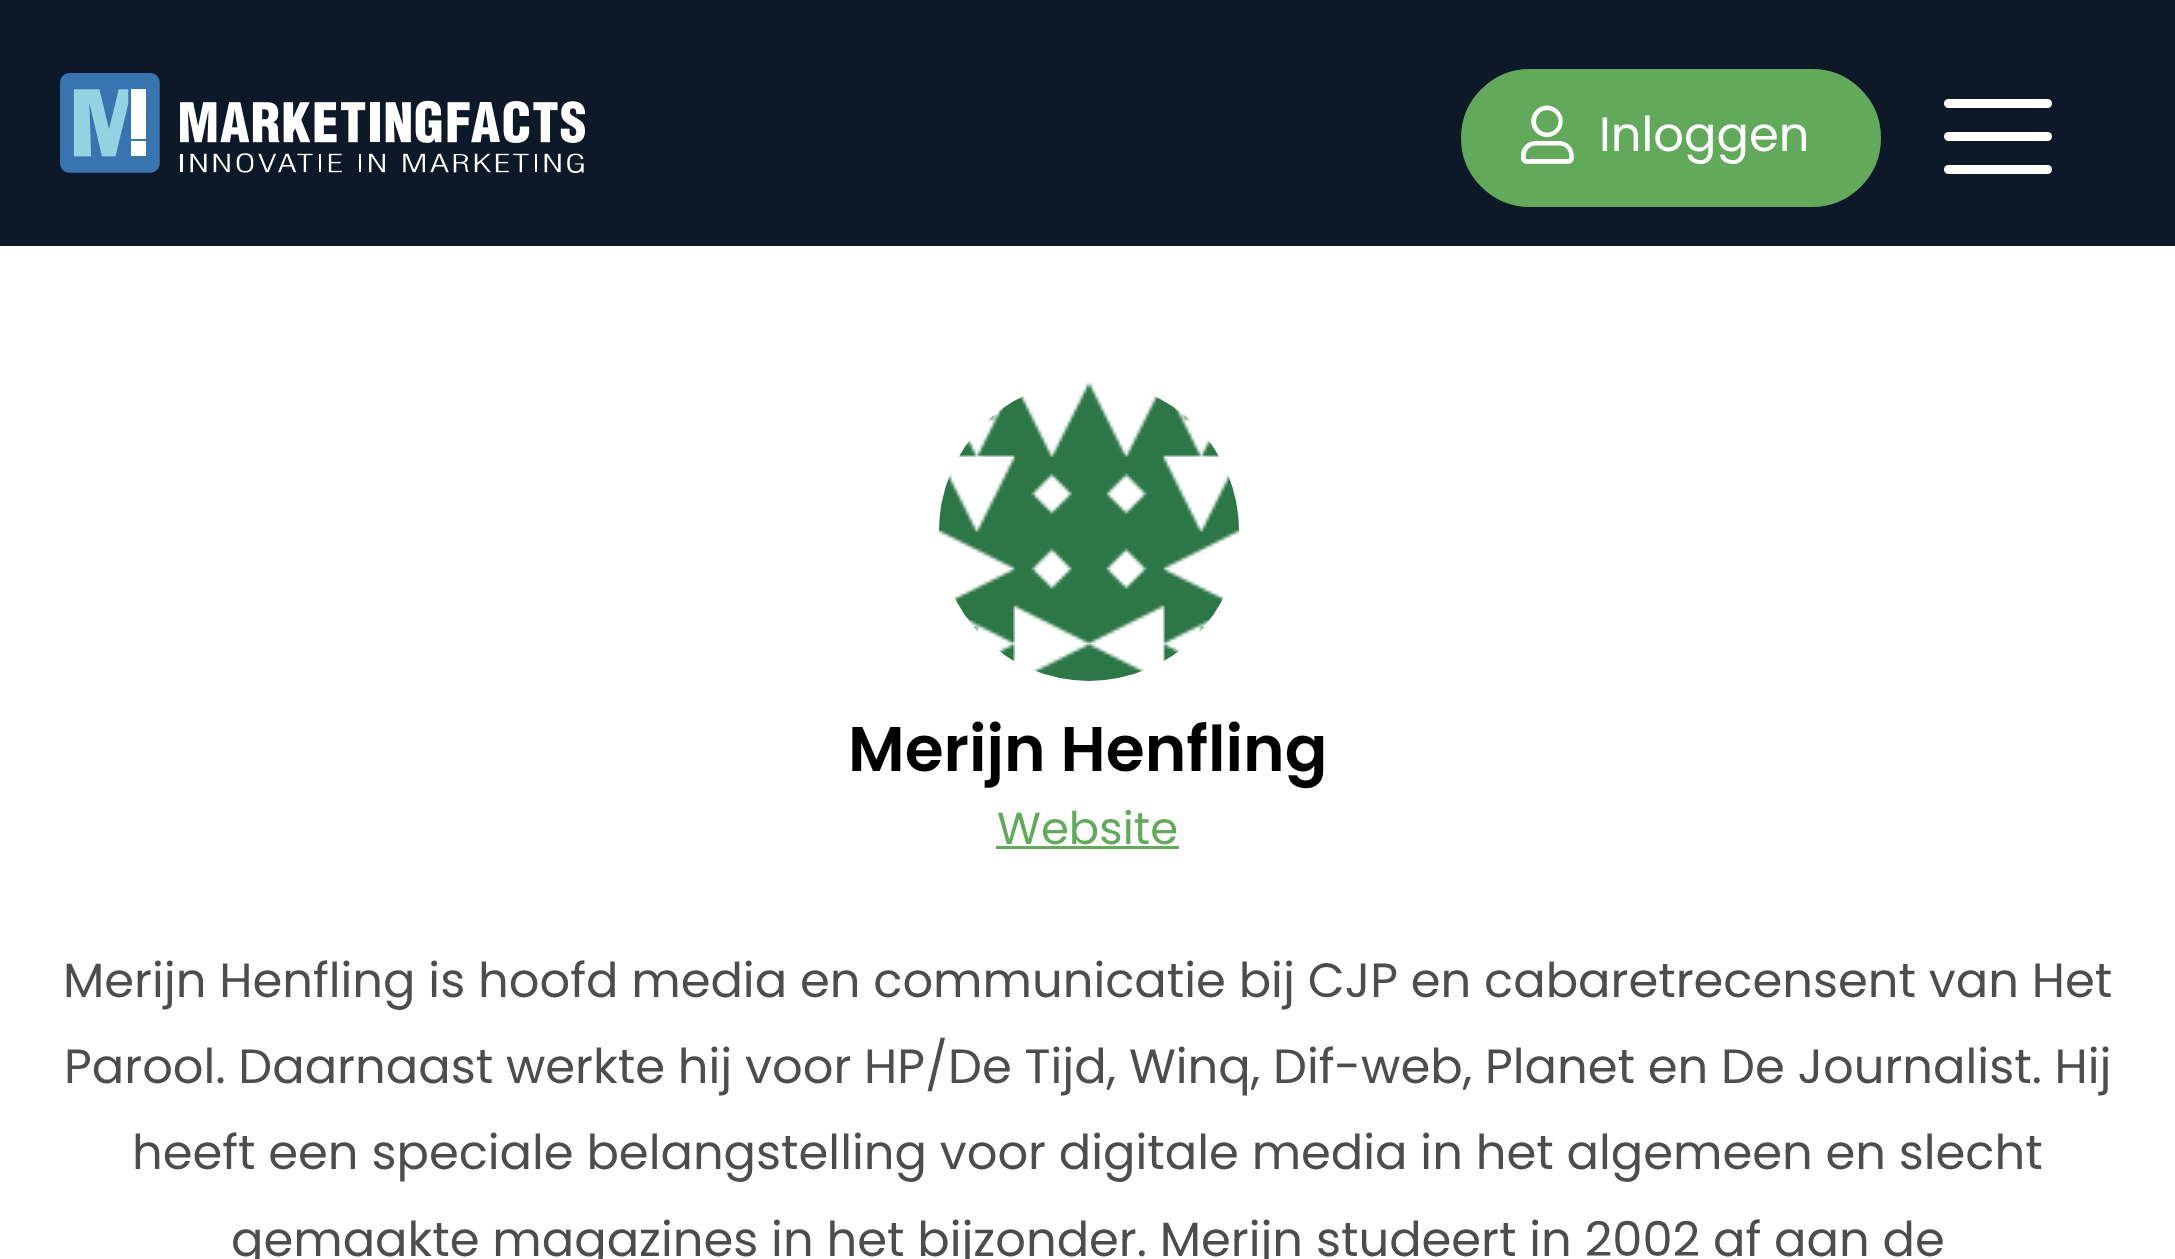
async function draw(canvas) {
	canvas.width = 2175;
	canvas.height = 1259;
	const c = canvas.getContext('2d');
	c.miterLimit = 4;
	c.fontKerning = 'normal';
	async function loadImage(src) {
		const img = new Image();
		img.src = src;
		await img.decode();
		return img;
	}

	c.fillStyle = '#fff';
	c.fillRect(0, 0, 2175, 1259);
	c.fillStyle = '#0d1828';
	c.fillRect(0, 0, 2175, 246);
	c.drawImage(await loadImage('img1.png'), 60, 73, 525, 100);
	c.fillStyle = '#63a95b';
	c.beginPath();
	c.roundRect(1464, 72, 414, 132, 66);
	c.fill();
	c.strokeStyle = '#63a95b';
	c.lineWidth = 6;
	c.stroke();
	c.drawImage(await loadImage('img2.png'), 1521, 105, 53, 59);
	c.font = '48px Poppins';
	c.fillStyle = '#fff';
	c.fillText('Inloggen', 1599, 151);
	c.beginPath();
	c.roundRect(1944, 132, 108, 9, 4.5);
	c.fill();
	c.beginPath();
	c.roundRect(1944, 99, 108, 9, 4.5);
	c.fill();
	c.beginPath();
	c.roundRect(1944, 165, 108, 9, 4.5);
	c.fill();
	c.drawImage(await loadImage('img3.png'), 939, 381, 300, 300);
	c.font = '600 63px Poppins';
	c.fillStyle = '#000';
	c.fillText('Merijn Henfling', 848, 771);
	c.font = '45px Poppins';
	c.fillStyle = '#63a95b';
	c.fillText('Website', 997, 844);
	c.fillRect(996, 846, 183, 3);
	c.font = '48px Poppins';
	c.fillStyle = '#4d4d4d';
	for (const [text, x, y] of [
		['Merijn Henfling is hoofd media en communicatie bij CJP en cabaretrecensent van Het', 63, 997],
		['Parool. Daarnaast werkte hij voor HP/De Tijd, Winq, Dif-web, Planet en De Journalist. Hij', 64, 1083],
		['heeft een speciale belangstelling voor digitale media in het algemeen en slecht', 132, 1169],
		['gemaakte magazines in het bijzonder. Merijn studeert in 2002 af aan de', 231, 1256],
	]) {
		c.fillText(text, x, y);
	}
}

draw(document.querySelector('canvas'));
